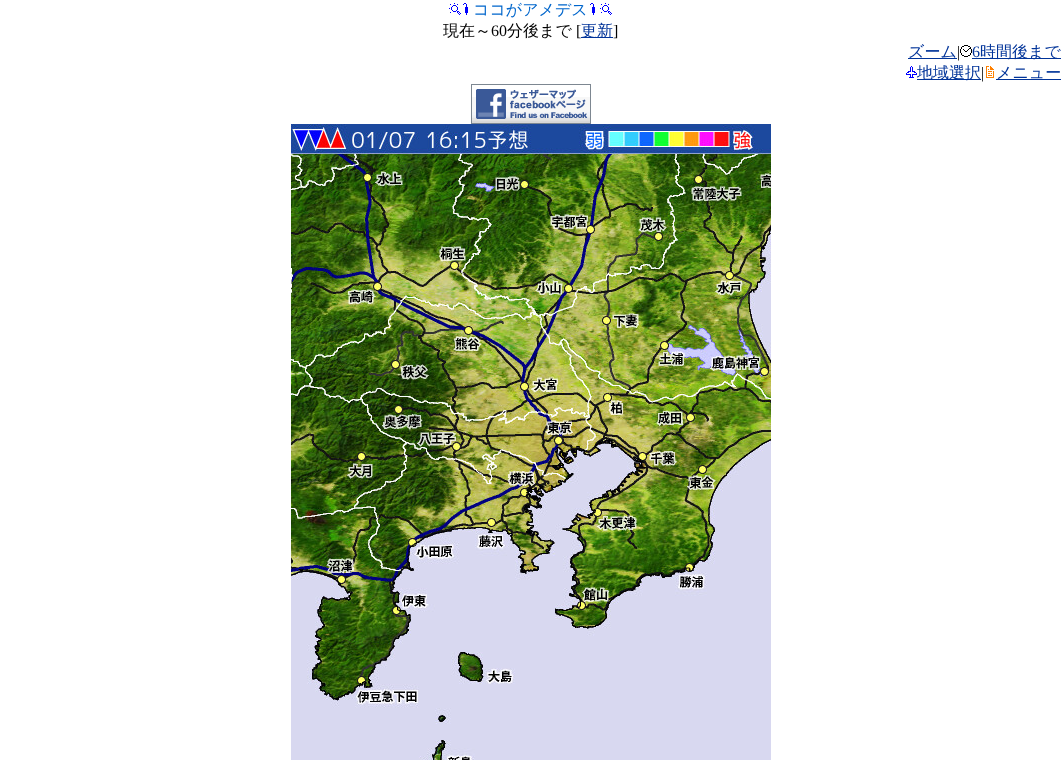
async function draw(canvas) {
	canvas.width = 1061;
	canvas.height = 760;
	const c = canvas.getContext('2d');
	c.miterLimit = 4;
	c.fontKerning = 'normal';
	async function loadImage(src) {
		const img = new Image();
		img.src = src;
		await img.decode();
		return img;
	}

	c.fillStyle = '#fff';
	c.fillRect(0, 0, 1061, 760);
	c.drawImage(await loadImage('img1.png'), 449, 3, 12, 12);
	c.drawImage(await loadImage('img2.png'), 463, 3, 5, 12);
	c.font = '500 16px WenQuanYi Zen Hei';
	c.fillStyle = '#06c';
	c.fillText('ココがアメデス', 473, 15);
	c.drawImage(await loadImage('img2.png'), 590, 3, 5, 12);
	c.drawImage(await loadImage('img1.png'), 600, 3, 12, 12);
	c.fillStyle = '#000';
	c.fillText('現在～', 443, 36);
	c.font = '16px Liberation Serif';
	c.fillText('60', 491, 36);
	c.font = '500 16px WenQuanYi Zen Hei';
	c.fillText('分後まで', 507, 36);
	c.font = '16px Liberation Serif';
	c.fillText('[', 576, 36);
	c.fillStyle = '#039';
	c.fillRect(581, 37, 32, 1);
	c.font = '500 16px WenQuanYi Zen Hei';
	c.fillText('更新', 581, 36);
	c.font = '16px Liberation Serif';
	c.fillStyle = '#000';
	c.fillText(']', 613, 36);
	c.fillStyle = '#039';
	c.fillRect(908, 58, 49, 1);
	c.font = '500 16px WenQuanYi Zen Hei';
	c.fillText('ズーム', 908, 57);
	c.font = '16px Liberation Serif';
	c.fillStyle = '#000';
	c.fillText('|', 957, 57);
	c.drawImage(await loadImage('img3.png'), 960, 45, 12, 12);
	c.fillStyle = '#039';
	c.fillText('6', 972, 57);
	c.fillRect(972, 58, 89, 1);
	c.font = '500 16px WenQuanYi Zen Hei';
	c.fillText('時間後まで', 980, 57);
	c.drawImage(await loadImage('img4.png'), 906, 66, 11, 12);
	c.fillRect(917, 79, 64, 1);
	c.fillText('地域選択', 917, 78);
	c.font = '16px Liberation Serif';
	c.fillStyle = '#000';
	c.fillText('|', 981, 78);
	c.drawImage(await loadImage('img5.png'), 986, 66, 8, 12);
	c.font = '500 16px WenQuanYi Zen Hei';
	c.fillStyle = '#039';
	c.fillText('メニュー', 996, 78);
	c.fillRect(996, 79, 65, 1);
	c.drawImage(await loadImage('img6.png'), 471, 84, 120, 40);
	c.drawImage(await loadImage('img7.png'), 291, 124, 480, 636);
}

draw(document.querySelector('canvas'));
